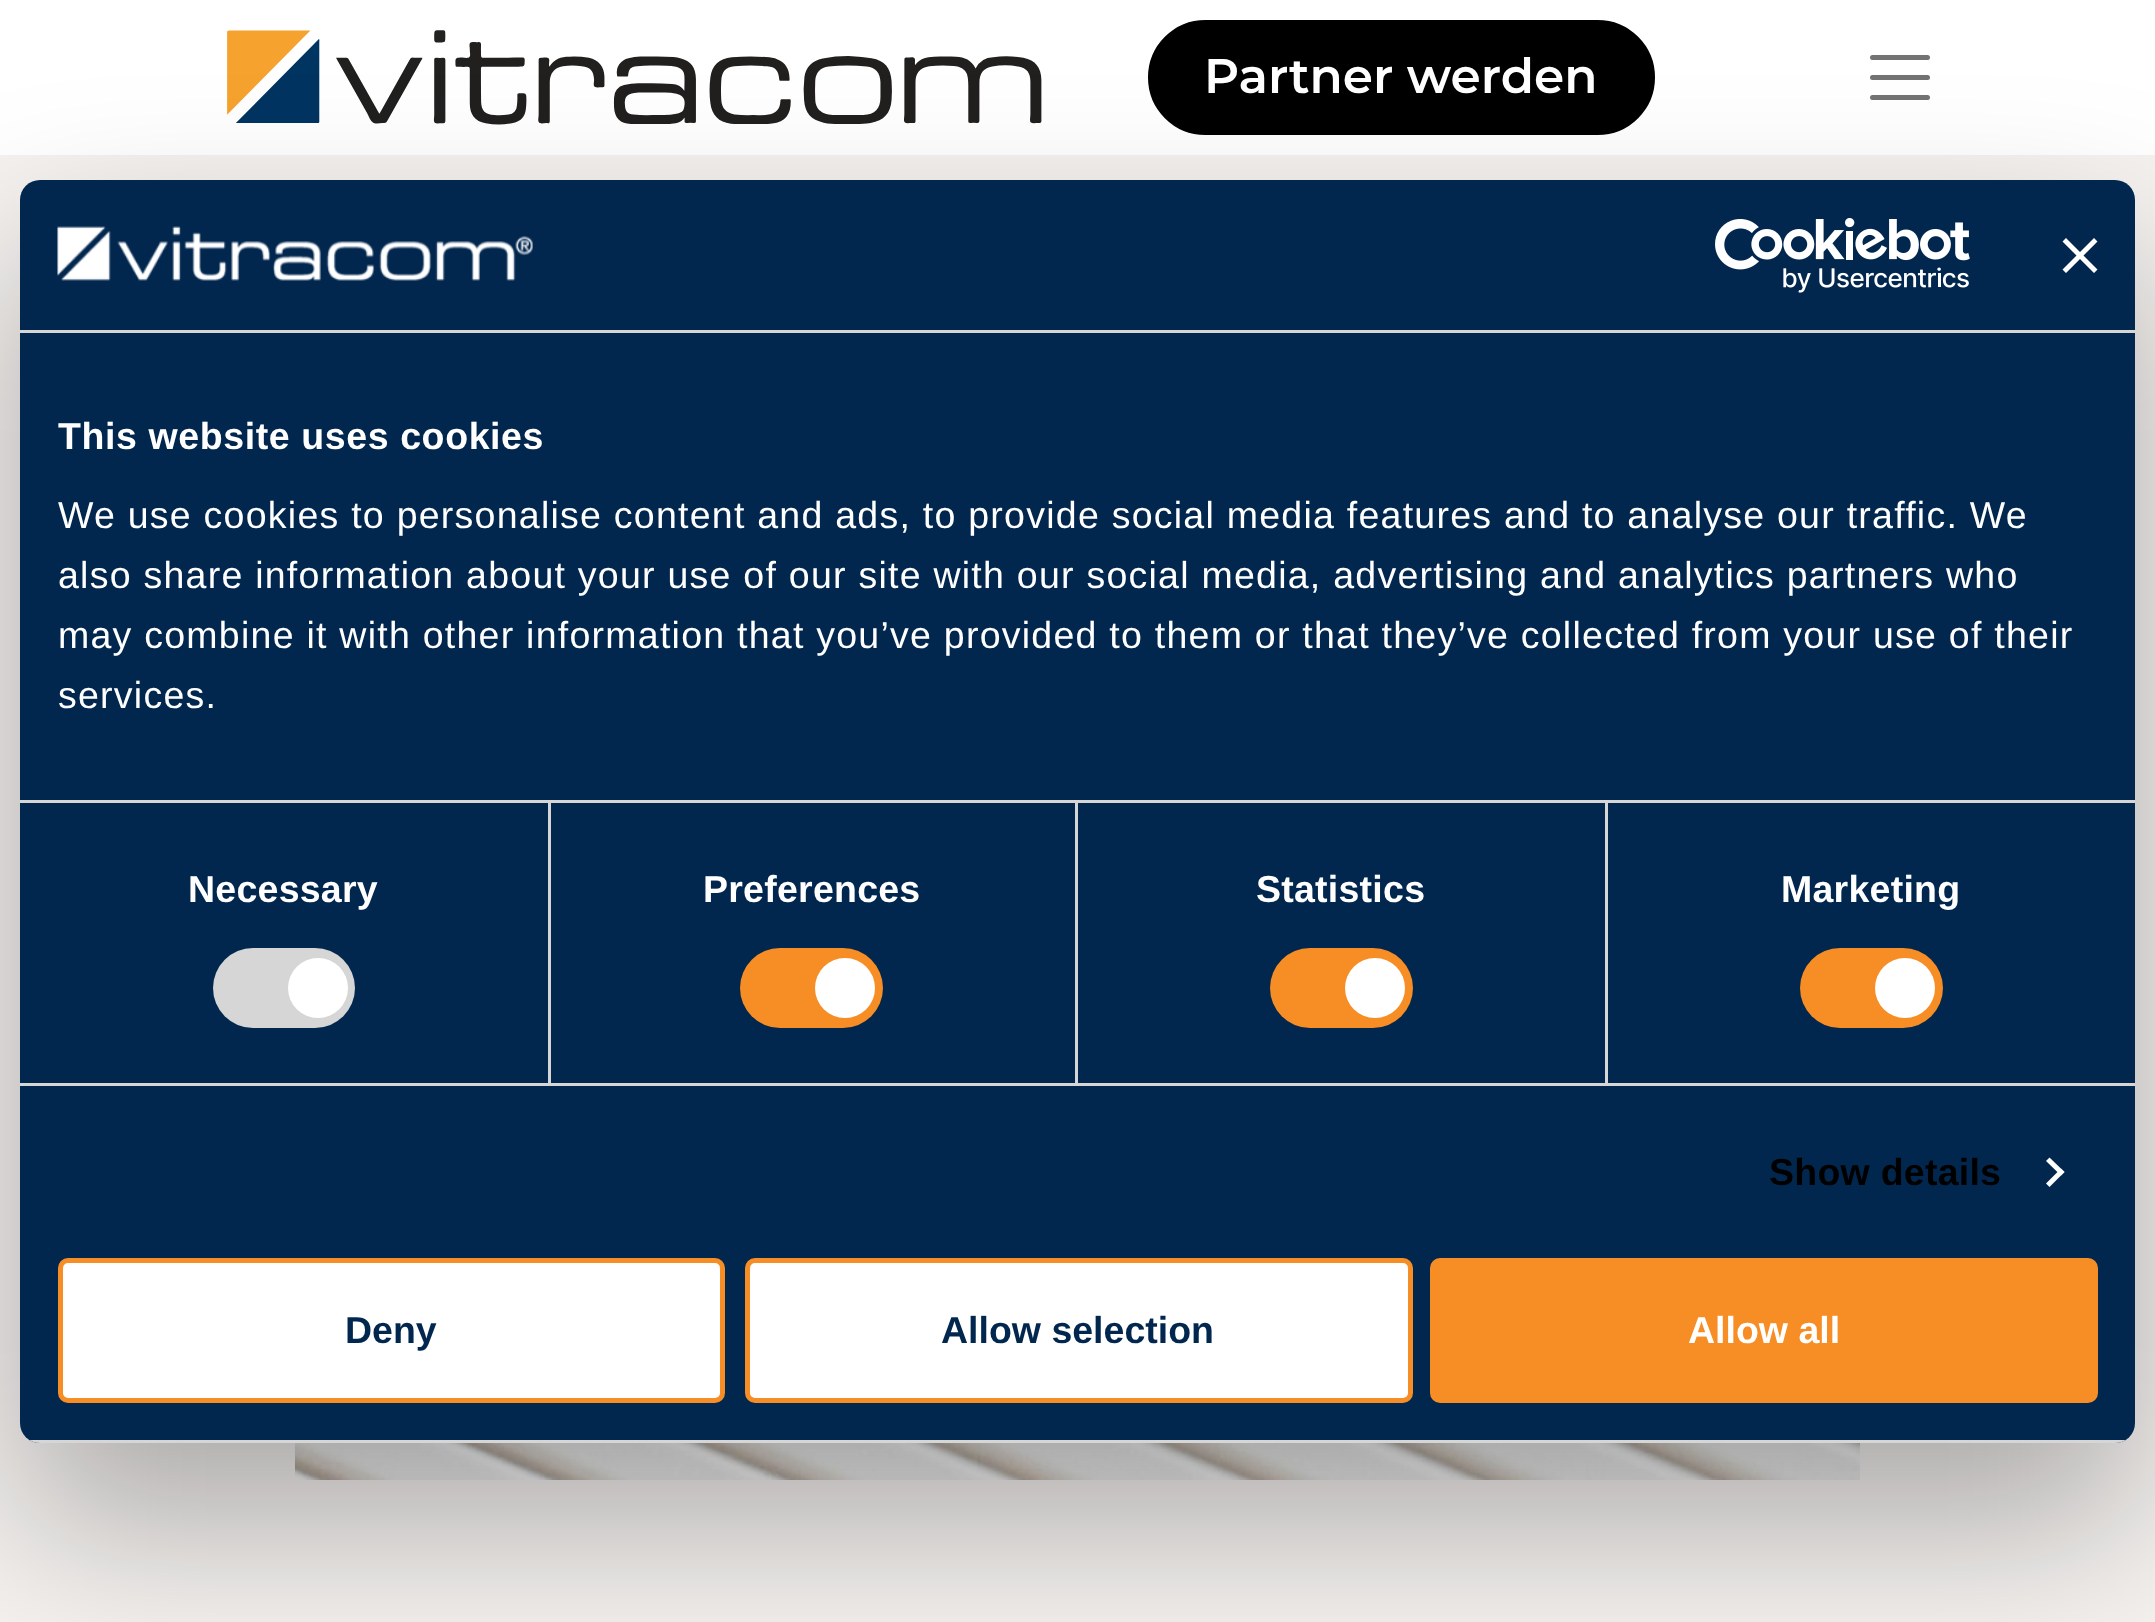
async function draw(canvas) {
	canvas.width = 2155;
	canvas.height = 1622;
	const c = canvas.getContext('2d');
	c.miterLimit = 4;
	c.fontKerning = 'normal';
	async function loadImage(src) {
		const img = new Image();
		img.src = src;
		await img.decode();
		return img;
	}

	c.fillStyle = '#fff';
	c.fillRect(0, 0, 2155, 1622);
	c.drawImage(await loadImage('img1.png'), 227, 30, 815, 95);
	c.fillStyle = '#000';
	c.beginPath();
	c.roundRect(1149.5, 21.5, 504, 112, 56);
	c.fill();
	c.strokeStyle = '#000';
	c.lineWidth = 3;
	c.stroke();
	c.font = '600 48.5px Montserrat';
	c.fillStyle = '#fff';
	c.fillText('Partner werden', 1204, 93);
	c.beginPath();
	c.moveTo(1872.5, 57.5);
	c.lineTo(1927.5, 57.5);
	c.moveTo(1872.5, 77.5);
	c.lineTo(1927.5, 77.5);
	c.moveTo(1872.5, 97.5);
	c.lineTo(1927.5, 97.5);
	c.strokeStyle = '#737373';
	c.lineWidth = 5;
	c.lineCap = 'round';
	c.stroke();
	c.fillStyle = '#f5f2f0';
	c.fillRect(0, 155, 2155, 1467);
	c.drawImage(await loadImage('img2.png'), 295, 1443, 1565, 37);
	c.fillStyle = '#0000004d';
	c.filter = 'blur(85px)';
	c.beginPath();
	c.roundRect(20, 260, 2115, 1263, 20);
	c.fill();
	c.filter = 'none';
	c.fillStyle = '#02274f';
	c.beginPath();
	c.roundRect(20, 180, 2115, 1263, 20);
	c.fill();
	c.fillStyle = '#d6d6d6';
	c.fillRect(20, 330, 2115, 3);
	c.drawImage(await loadImage('img3.png'), 57, 226, 476, 55);
	c.drawImage(await loadImage('img4.png'), 1715, 218, 255, 75);
	c.fillStyle = '#fff';
	c.beginPath();
	c.moveTo(2097.5, 241.5);
	c.lineTo(2094, 238);
	c.lineTo(2080, 252);
	c.lineTo(2066, 238);
	c.lineTo(2062.5, 241.5);
	c.lineTo(2076.5, 255.5);
	c.lineTo(2062.5, 269.5);
	c.lineTo(2066, 273);
	c.lineTo(2080, 259);
	c.lineTo(2094, 273);
	c.lineTo(2097.5, 269.5);
	c.lineTo(2083.5, 255.5);
	c.closePath();
	c.fill();
	c.fillStyle = '#d6d6d6';
	c.fillRect(20, 800, 2115, 3);
	c.letterSpacing = '0.6px';
	c.font = 'bold 37.5px Liberation Sans';
	c.fillStyle = '#fff';
	c.fillText('This website uses cookies', 58, 449);
	c.letterSpacing = '1.25px';
	c.font = '37.5px Liberation Sans';
	for (const [text, x, y] of [
		['We use cookies to personalise content and ads, to provide social media features and to analyse our traffic. We', 58, 528],
		['also share information about your use of our site with our social media, advertising and analytics partners who', 58, 588],
		['may combine it with other information that you’ve provided to them or that they’ve collected from your use of their', 58, 648],
		['services.', 58, 708],
	]) {
		c.fillText(text, x, y);
	}
	c.fillStyle = '#d6d6d6';
	c.fillRect(20, 1083, 2115, 3);
	c.fillRect(548, 803, 3, 280);
	c.letterSpacing = '0.25px';
	c.font = 'bold 37.5px Liberation Sans';
	c.fillStyle = '#fff';
	c.fillText('Necessary', 188, 902);
	c.fillStyle = '#d6d6d6';
	c.beginPath();
	c.roundRect(213, 948, 142, 80, 40);
	c.fill();
	c.fillStyle = '#fff';
	c.beginPath();
	c.arc(318, 988, 30, 0, 2 * Math.PI);
	c.fill();
	c.fillStyle = '#d6d6d6';
	c.fillRect(1075, 803, 3, 280);
	c.fillStyle = '#fff';
	c.fillText('Preferences', 703, 902);
	c.fillStyle = '#f78d25';
	c.beginPath();
	c.roundRect(740, 948, 143, 80, 40);
	c.fill();
	c.fillStyle = '#fff';
	c.beginPath();
	c.arc(845, 988, 30, 0, 2 * Math.PI);
	c.fill();
	c.fillStyle = '#d6d6d6';
	c.fillRect(1605, 803, 3, 280);
	c.fillStyle = '#fff';
	c.fillText('Statistics', 1256, 902);
	c.fillStyle = '#f78d25';
	c.beginPath();
	c.roundRect(1270, 948, 143, 80, 40);
	c.fill();
	c.fillStyle = '#fff';
	c.beginPath();
	c.arc(1375, 988, 30, 0, 2 * Math.PI);
	c.fill();
	c.fillText('Marketing', 1781, 902);
	c.fillStyle = '#f78d25';
	c.beginPath();
	c.roundRect(1800, 948, 143, 80, 40);
	c.fill();
	c.fillStyle = '#fff';
	c.beginPath();
	c.arc(1905, 988, 30, 0, 2 * Math.PI);
	c.fill();
	c.fillStyle = '#000';
	c.fillText('Show details', 1769, 1185);
	c.fillStyle = '#fff';
	c.beginPath();
	c.moveTo(2049.5, 1157.5);
	c.lineTo(2064.5, 1172);
	c.lineTo(2061, 1175.5);
	c.lineTo(2046, 1161);
	c.closePath();
	c.fill();
	c.beginPath();
	c.moveTo(2061, 1168.5);
	c.lineTo(2064.5, 1172);
	c.lineTo(2049.5, 1187);
	c.lineTo(2046, 1183.5);
	c.closePath();
	c.fill();
	c.save();
	c.beginPath();
	c.roundRect(20, 180, 2115, 1263, 20);
	c.clip();
	c.fillStyle = '#d6d6d6';
	c.fillRect(29, 1440, 2097, 3);
	c.restore();
	c.beginPath();
	c.roundRect(60.5, 1260.5, 662, 140, 7.5);
	c.fill();
	c.strokeStyle = '#f78d25';
	c.stroke();
	c.letterSpacing = '0px';
	c.fillStyle = '#02274f';
	c.fillText('Deny', 345, 1343);
	c.fillStyle = '#fff';
	c.beginPath();
	c.roundRect(747.5, 1260.5, 663, 140, 7.5);
	c.fill();
	c.stroke();
	c.fillStyle = '#02274f';
	c.fillText('Allow selection', 941, 1343);
	c.fillStyle = '#f78d25';
	c.beginPath();
	c.roundRect(1432.5, 1260.5, 663, 140, 7.5);
	c.fill();
	c.stroke();
	c.fillStyle = '#fff';
	c.fillText('Allow all', 1688, 1343);
}

draw(document.querySelector('canvas'));
